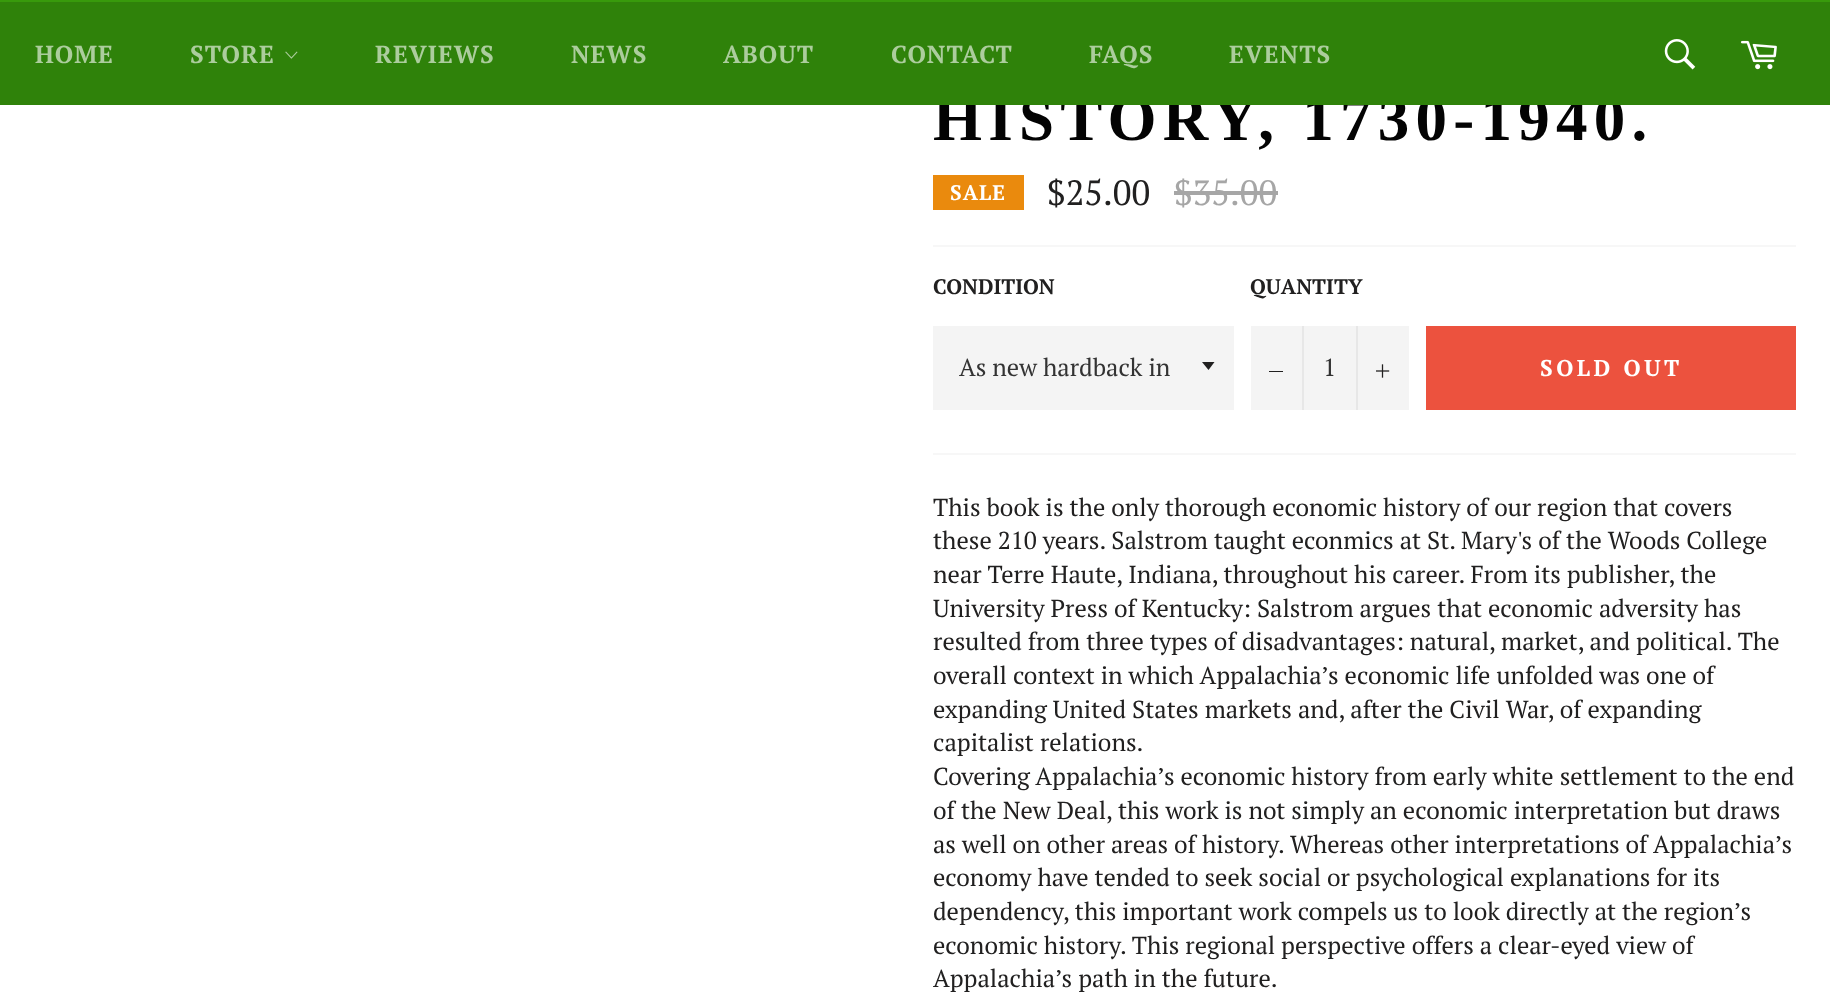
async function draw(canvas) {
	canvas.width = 1830;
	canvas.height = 1004;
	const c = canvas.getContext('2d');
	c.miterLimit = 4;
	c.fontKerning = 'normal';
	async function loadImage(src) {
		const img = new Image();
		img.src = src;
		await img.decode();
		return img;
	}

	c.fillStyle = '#fff';
	c.fillRect(0, 0, 1830, 1004);
	c.letterSpacing = '6.25px';
	c.font = 'bold 63px Liberation Serif';
	c.fillStyle = '#030303';
	c.fillText('HISTORY, 1730-1940.', 933, 140);
	c.fillStyle = '#2f820a';
	c.fillRect(0, 2, 1830, 103);
	c.fillStyle = '#389a0c';
	c.fillRect(0, 0, 1830, 2);
	c.letterSpacing = '1px';
	c.font = 'bold 24.5px PT Serif';
	c.fillStyle = '#accd9d';
	c.fillText('HOME', 35, 63);
	c.fillText('STORE', 190, 63);
	c.drawImage(await loadImage('img1.png'), 285, 51, 13, 8);
	for (const [text, x, y] of [
		['REVIEWS', 375, 63],
		['NEWS', 571, 63],
		['ABOUT', 723, 63],
		['CONTACT', 891, 63],
		['FAQS', 1089, 63],
		['EVENTS', 1229, 63],
	]) {
		c.fillText(text, x, y);
	}
	c.drawImage(await loadImage('img2.png'), 1664, 39, 32, 31);
	c.drawImage(await loadImage('img3.png'), 1740, 40, 37, 30);
	c.fillStyle = '#ea8a0d';
	c.fillRect(933, 175, 91, 35);
	c.font = 'bold 21px PT Serif';
	c.fillStyle = '#fff';
	c.fillText('SALE', 950, 200);
	c.letterSpacing = '0px';
	c.font = '35px PT Serif';
	c.fillStyle = '#212020';
	c.fillText('$25.00', 1047, 205);
	c.fillStyle = '#a6a6a6';
	c.fillText('$35.00', 1174, 205);
	c.fillRect(1174, 191, 104, 4);
	c.fillStyle = '#f7f7f7';
	c.fillRect(933, 245, 863, 2);
	c.font = 'bold 21px PT Serif';
	c.fillStyle = '#212020';
	c.fillText('CONDITION', 933, 294);
	c.fillStyle = '#f4f4f4';
	c.fillRect(933, 326, 301, 84);
	c.fillStyle = '#212020';
	c.beginPath();
	c.moveTo(1202, 362);
	c.lineTo(1208.5, 370);
	c.lineTo(1214.5, 362);
	c.closePath();
	c.fill();
	c.font = '24.5px PT Serif';
	c.fillStyle = '#333';
	c.fillText('As new hardback in', 959, 376);
	c.font = 'bold 21px PT Serif';
	c.fillStyle = '#212020';
	c.fillText('QUANTITY', 1250, 294);
	for (const [x, y, w, h, color] of [
		[1251, 326, 158, 84, '#f4f4f4'],
		[1302, 326, 2, 84, '#e7e7e7'],
		[1269, 371, 14, 1, '#212020'],
	]) {
		c.fillStyle = color;
		c.fillRect(x, y, w, h);
	}
	c.font = '24.5px PT Serif';
	c.fillStyle = '#333';
	c.fillText('1', 1323, 376);
	c.fillStyle = '#e7e7e7';
	c.fillRect(1356, 326, 2, 84);
	c.drawImage(await loadImage('img4.png'), 1376, 364, 14, 14);
	c.fillStyle = '#ec523e';
	c.fillRect(1426, 326, 370, 84);
	c.letterSpacing = '3.5px';
	c.font = 'bold 22.75px PT Serif';
	c.fillStyle = '#fff';
	c.fillText('SOLD OUT', 1540, 376);
	c.fillStyle = '#f7f7f7';
	c.fillRect(933, 453, 863, 2);
	c.letterSpacing = '0px';
	c.font = '24.5px PT Serif';
	c.fillStyle = '#212020';
	for (const [text, x, y] of [
		['This book is the only thorough economic history of our region that covers', 933, 516],
		['these 210 years. Salstrom taught econmics at St. Mary\'s of the Woods College', 933, 549],
		['near Terre Haute, Indiana, throughout his career. From its publisher, the', 933, 583],
		['University Press of Kentucky: Salstrom argues that economic adversity has', 933, 617],
		['resulted from three types of disadvantages: natural, market, and political. The', 933, 650],
		['overall context in which Appalachia’s economic life unfolded was one of', 933, 684],
		['expanding United States markets and, after the Civil War, of expanding', 933, 718],
		['capitalist relations.', 933, 751],
		['Covering Appalachia’s economic history from early white settlement to the end', 933, 785],
		['of the New Deal, this work is not simply an economic interpretation but draws', 933, 819],
		['as well on other areas of history. Whereas other interpretations of Appalachia’s', 933, 853],
		['economy have tended to seek social or psychological explanations for its', 933, 886],
		['dependency, this important work compels us to look directly at the region’s', 933, 920],
		['economic history. This regional perspective offers a clear-eyed view of', 933, 954],
		['Appalachia’s path in the future.', 933, 987],
	]) {
		c.fillText(text, x, y);
	}
}

draw(document.querySelector('canvas'));
